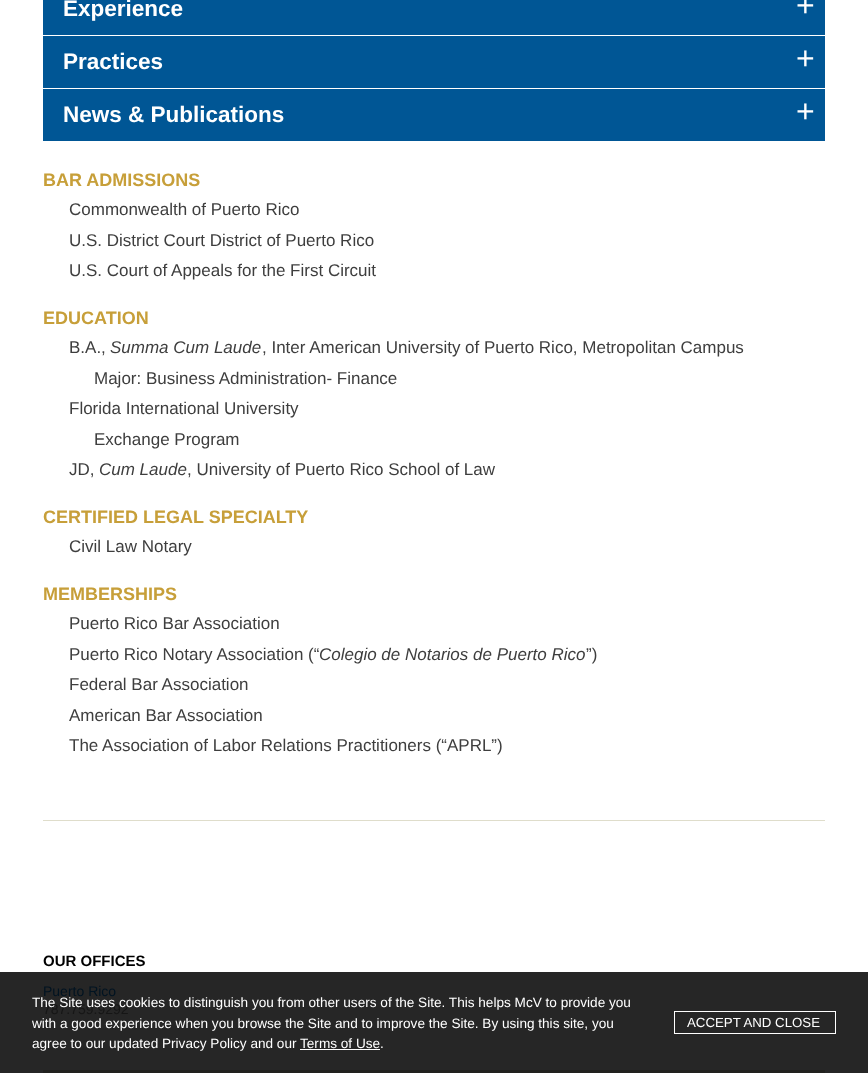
async function draw(canvas) {
	canvas.width = 868;
	canvas.height = 1073;
	const c = canvas.getContext('2d');
	c.miterLimit = 4;
	c.fontKerning = 'normal';

	c.fillStyle = '#fff';
	c.fillRect(0, 0, 868, 1073);
	c.fillStyle = '#262626';
	c.fillRect(0, 972, 868, 101);
	c.fillStyle = '#005695';
	c.fillRect(43, 0, 782, 35);
	c.font = 'bold 22.5px Liberation Sans';
	c.fillStyle = '#fff';
	c.fillText('Experience', 63, 16);
	c.font = '32px Liberation Sans';
	c.fillText('+', 796, 16);
	c.fillStyle = '#005695';
	c.fillRect(43, 36, 782, 52);
	c.font = 'bold 22.5px Liberation Sans';
	c.fillStyle = '#fff';
	c.fillText('Practices', 63, 69);
	c.font = '32px Liberation Sans';
	c.fillText('+', 796, 69);
	c.fillStyle = '#005695';
	c.fillRect(43, 89, 782, 52);
	c.font = 'bold 22.5px Liberation Sans';
	c.fillStyle = '#fff';
	c.fillText('News & Publications', 63, 122);
	c.font = '32px Liberation Sans';
	c.fillText('+', 796, 122);
	c.font = 'bold 18px Liberation Sans';
	c.fillStyle = '#c79f39';
	c.fillText('BAR ADMISSIONS', 43, 186);
	c.font = '17px Liberation Sans';
	c.fillStyle = '#3e3e3e';
	for (const [text, x, y] of [
		['Commonwealth of Puerto Rico', 69, 215],
		['U.S. District Court District of Puerto Rico', 69, 246],
		['U.S. Court of Appeals for the First Circuit', 69, 276],
	]) {
		c.fillText(text, x, y);
	}
	c.font = 'bold 18px Liberation Sans';
	c.fillStyle = '#c79f39';
	c.fillText('EDUCATION', 43, 324);
	c.font = '17px Liberation Sans';
	c.fillStyle = '#3e3e3e';
	c.fillText('B.A.,', 69, 353);
	c.font = 'italic 17px Liberation Sans';
	c.fillText('Summa Cum Laude', 110, 353);
	c.font = '17px Liberation Sans';
	for (const [text, x, y] of [
		[', Inter American University of Puerto Rico, Metropolitan Campus', 262, 353],
		['Major: Business Administration- Finance', 94, 384],
		['Florida International University', 69, 414],
		['Exchange Program', 94, 445],
		['JD,', 69, 475],
	]) {
		c.fillText(text, x, y);
	}
	c.font = 'italic 17px Liberation Sans';
	c.fillText('Cum Laude', 99, 475);
	c.font = '17px Liberation Sans';
	c.fillText(', University of Puerto Rico School of Law', 187, 475);
	c.font = 'bold 18px Liberation Sans';
	c.fillStyle = '#c79f39';
	c.fillText('CERTIFIED LEGAL SPECIALTY', 43, 523);
	c.font = '17px Liberation Sans';
	c.fillStyle = '#3e3e3e';
	c.fillText('Civil Law Notary', 69, 552);
	c.font = 'bold 18px Liberation Sans';
	c.fillStyle = '#c79f39';
	c.fillText('MEMBERSHIPS', 43, 600);
	c.font = '17px Liberation Sans';
	c.fillStyle = '#3e3e3e';
	c.fillText('Puerto Rico Bar Association', 69, 629);
	c.fillText('Puerto Rico Notary Association (“', 69, 660);
	c.font = 'italic 17px Liberation Sans';
	c.fillText('Colegio de Notarios de Puerto Rico', 319, 660);
	c.font = '17px Liberation Sans';
	for (const [text, x, y] of [
		['”)', 586, 660],
		['Federal Bar Association', 69, 690],
		['American Bar Association', 69, 721],
		['The Association of Labor Relations Practitioners (“APRL”)', 69, 751],
	]) {
		c.fillText(text, x, y);
	}
	c.fillStyle = '#dfddcb';
	c.fillRect(43, 820, 782, 1);
	c.fillStyle = '#21211e';
	c.fillRect(43, 1070, 782, 3);
	c.font = 'bold 15px Liberation Sans';
	c.fillStyle = '#000';
	c.fillText('OUR OFFICES', 43, 966);
	c.font = '14px Liberation Sans';
	c.fillStyle = '#001321';
	c.fillText('Puerto Rico', 43, 996);
	c.fillStyle = '#161616';
	c.fillText('787.759.9292', 43, 1014);
	c.font = '13.6px Liberation Sans';
	c.fillStyle = '#fff';
	for (const [text, x, y] of [
		['The Site uses cookies to distinguish you from other users of the Site. This helps McV to provide you', 32, 1007],
		['with a good experience when you browse the Site and to improve the Site. By using this site, you', 32, 1028],
		['agree to our updated Privacy Policy and our Terms of Use.', 32, 1048],
	]) {
		c.fillText(text, x, y);
	}
	c.fillRect(300, 1049, 80, 1);
	c.strokeStyle = '#fff';
	c.strokeRect(674.5, 1011.5, 161, 22);
	c.font = '13.25px Liberation Sans';
	c.fillText('ACCEPT AND CLOSE', 687, 1027);
}

draw(document.querySelector('canvas'));
